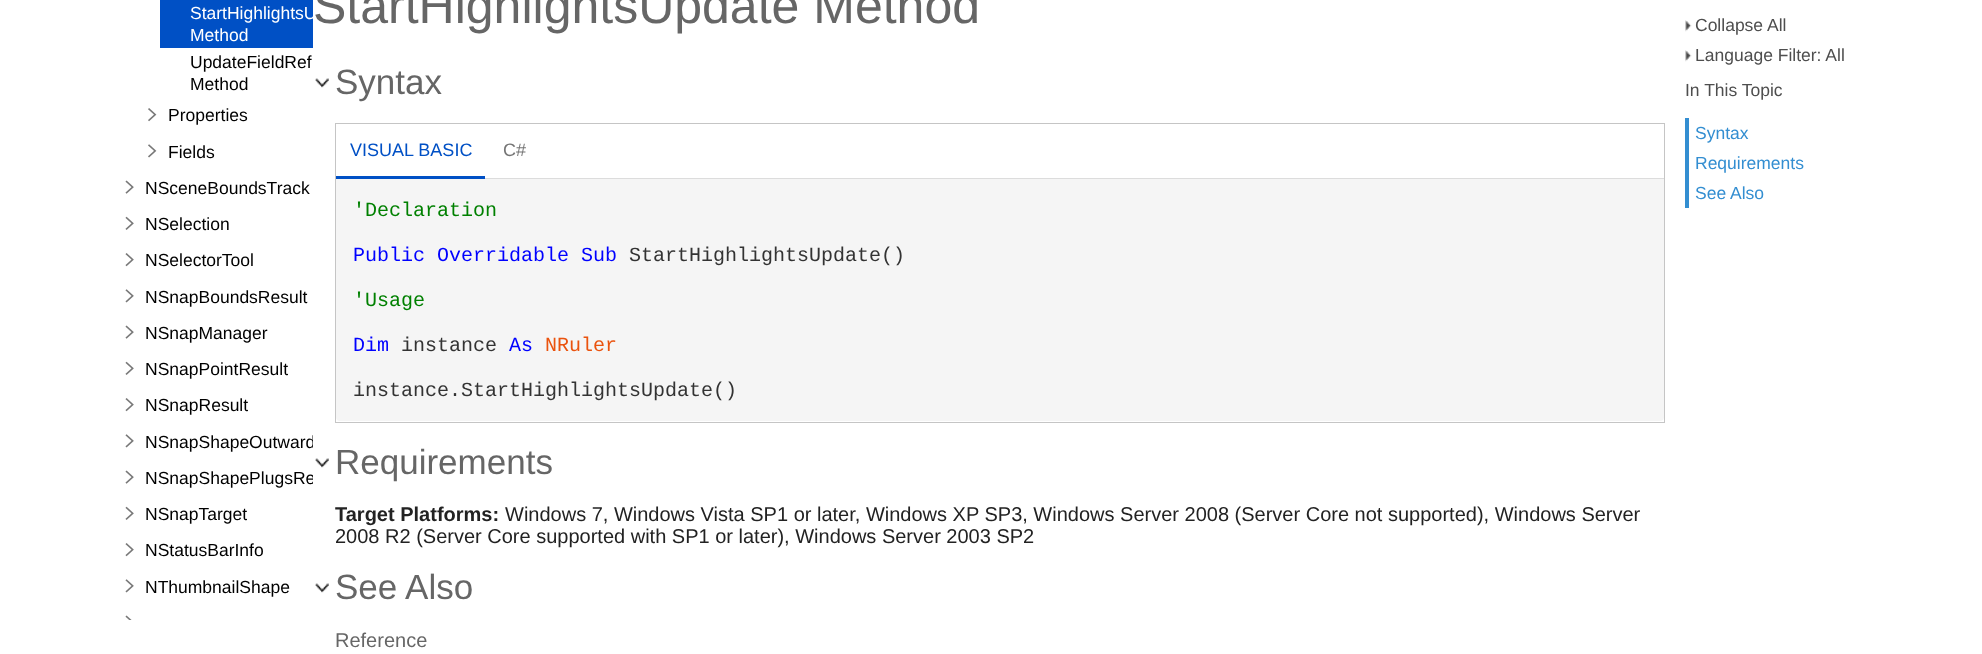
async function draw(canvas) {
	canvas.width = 1982;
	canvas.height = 654;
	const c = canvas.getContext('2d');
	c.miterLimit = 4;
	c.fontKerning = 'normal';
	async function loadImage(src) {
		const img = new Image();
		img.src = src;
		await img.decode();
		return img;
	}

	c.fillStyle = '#fff';
	c.fillRect(0, 0, 1982, 654);
	c.fillStyle = '#0050c5';
	c.fillRect(160, 0, 153, 48);
	c.save();
	c.beginPath();
	c.rect(10, 0, 303, 620);
	c.clip();
	c.font = '17.5px Liberation Sans';
	c.fillStyle = '#fff';
	c.fillText('StartHighlightsU', 190, 19);
	c.restore();
	c.font = '17.5px Liberation Sans';
	c.fillStyle = '#fff';
	c.fillText('Method', 190, 41);
	c.fillStyle = '#000';
	c.fillText('UpdateFieldRef', 190, 68);
	c.fillText('Method', 190, 90);
	c.drawImage(await loadImage('img1.png'), 148, 108, 9, 14);
	c.fillText('Properties', 168, 121);
	c.drawImage(await loadImage('img2.png'), 148, 144, 9, 14);
	c.fillText('Fields', 168, 158);
	c.drawImage(await loadImage('img3.png'), 125, 180, 9, 14);
	c.fillText('NSceneBoundsTrack', 145, 194);
	c.drawImage(await loadImage('img4.png'), 125, 216, 9, 14);
	c.fillText('NSelection', 145, 230);
	c.drawImage(await loadImage('img5.png'), 125, 253, 9, 14);
	c.fillText('NSelectorTool', 145, 266);
	c.drawImage(await loadImage('img6.png'), 125, 289, 9, 14);
	c.fillText('NSnapBoundsResult', 145, 303);
	c.drawImage(await loadImage('img3.png'), 125, 325, 9, 14);
	c.fillText('NSnapManager', 145, 339);
	c.drawImage(await loadImage('img4.png'), 125, 361, 9, 14);
	c.fillText('NSnapPointResult', 145, 375);
	c.drawImage(await loadImage('img5.png'), 125, 398, 9, 14);
	c.fillText('NSnapResult', 145, 411);
	c.drawImage(await loadImage('img6.png'), 125, 434, 9, 14);
	c.save();
	c.beginPath();
	c.rect(10, 0, 303, 620);
	c.clip();
	c.fillText('NSnapShapeOutward', 145, 448);
	c.restore();
	c.drawImage(await loadImage('img3.png'), 125, 470, 9, 14);
	c.save();
	c.beginPath();
	c.rect(10, 0, 303, 620);
	c.clip();
	c.fillText('NSnapShapePlugsRe', 145, 484);
	c.restore();
	c.drawImage(await loadImage('img4.png'), 125, 506, 9, 14);
	c.fillText('NSnapTarget', 145, 520);
	c.drawImage(await loadImage('img5.png'), 125, 543, 9, 14);
	c.fillText('NStatusBarInfo', 145, 556);
	c.drawImage(await loadImage('img6.png'), 125, 579, 9, 14);
	c.fillText('NThumbnailShape', 145, 593);
	c.drawImage(await loadImage('img7.png'), 125, 615, 7, 5);
	c.font = '50px Liberation Sans';
	c.fillStyle = '#666';
	c.fillText('StartHighlightsUpdate Method', 313, 23);
	c.drawImage(await loadImage('img8.png'), 315, 78, 14, 10);
	c.font = '35px Liberation Sans';
	c.fillText('Syntax', 335, 94);
	c.strokeStyle = '#c5c5c5';
	c.strokeRect(335.5, 123.5, 1329, 299);
	c.fillStyle = '#dcdcdc';
	c.fillRect(485, 178, 1179, 1);
	c.fillStyle = '#0050c5';
	c.fillRect(336, 176, 149, 3);
	c.font = '18px Liberation Sans';
	c.fillText('VISUAL BASIC', 350, 156);
	c.fillStyle = '#757575';
	c.fillText('C#', 503, 156);
	c.fillStyle = '#f5f5f5';
	c.beginPath();
	c.roundRect(336, 179, 1328, 242, [0, 0, 4, 4]);
	c.fill();
	c.font = '20px Liberation Mono';
	c.fillStyle = '#008000';
	c.fillText('\'Declaration', 353, 216);
	c.fillStyle = '#00f';
	c.fillText('Public Overridable Sub', 353, 261);
	c.fillStyle = '#333';
	c.fillText('StartHighlightsUpdate()', 629, 261);
	c.fillStyle = '#008000';
	c.fillText('\'Usage', 353, 306);
	c.fillStyle = '#00f';
	c.fillText('Dim', 353, 351);
	c.fillStyle = '#333';
	c.fillText('instance', 401, 351);
	c.fillStyle = '#00f';
	c.fillText('As', 509, 351);
	c.fillStyle = '#ea530e';
	c.fillText('NRuler', 545, 351);
	c.fillStyle = '#333';
	c.fillText('instance.StartHighlightsUpdate()', 353, 396);
	c.drawImage(await loadImage('img8.png'), 315, 458, 14, 10);
	c.font = '35px Liberation Sans';
	c.fillStyle = '#666';
	c.fillText('Requirements', 335, 474);
	c.font = 'bold 20px Liberation Sans';
	c.fillStyle = '#222';
	c.fillText('Target Platforms:', 335, 521);
	c.font = '20px Liberation Sans';
	c.fillText('Windows 7, Windows Vista SP1 or later, Windows XP SP3, Windows Server 2008 (Server Core not supported), Windows Server', 505, 521);
	c.fillText('2008 R2 (Server Core supported with SP1 or later), Windows Server 2003 SP2', 335, 543);
	c.drawImage(await loadImage('img8.png'), 315, 583, 14, 10);
	c.font = '35px Liberation Sans';
	c.fillStyle = '#666';
	c.fillText('See Also', 335, 599);
	c.font = '20px Liberation Sans';
	c.fillText('Reference', 335, 647);
	c.drawImage(await loadImage('img9.png'), 1685, 20, 7, 12);
	c.font = '17.5px Liberation Sans';
	c.fillStyle = '#4e4e4e';
	c.fillText('Collapse All', 1695, 31);
	c.drawImage(await loadImage('img9.png'), 1685, 50, 7, 12);
	c.fillText('Language Filter: All', 1695, 61);
	c.fillText('In This Topic', 1685, 96);
	c.fillStyle = '#338ed1';
	c.fillRect(1685, 118, 4, 90);
	for (const [text, x, y] of [
		['Syntax', 1695, 139],
		['Requirements', 1695, 169],
		['See Also', 1695, 199],
	]) {
		c.fillText(text, x, y);
	}
}

draw(document.querySelector('canvas'));
